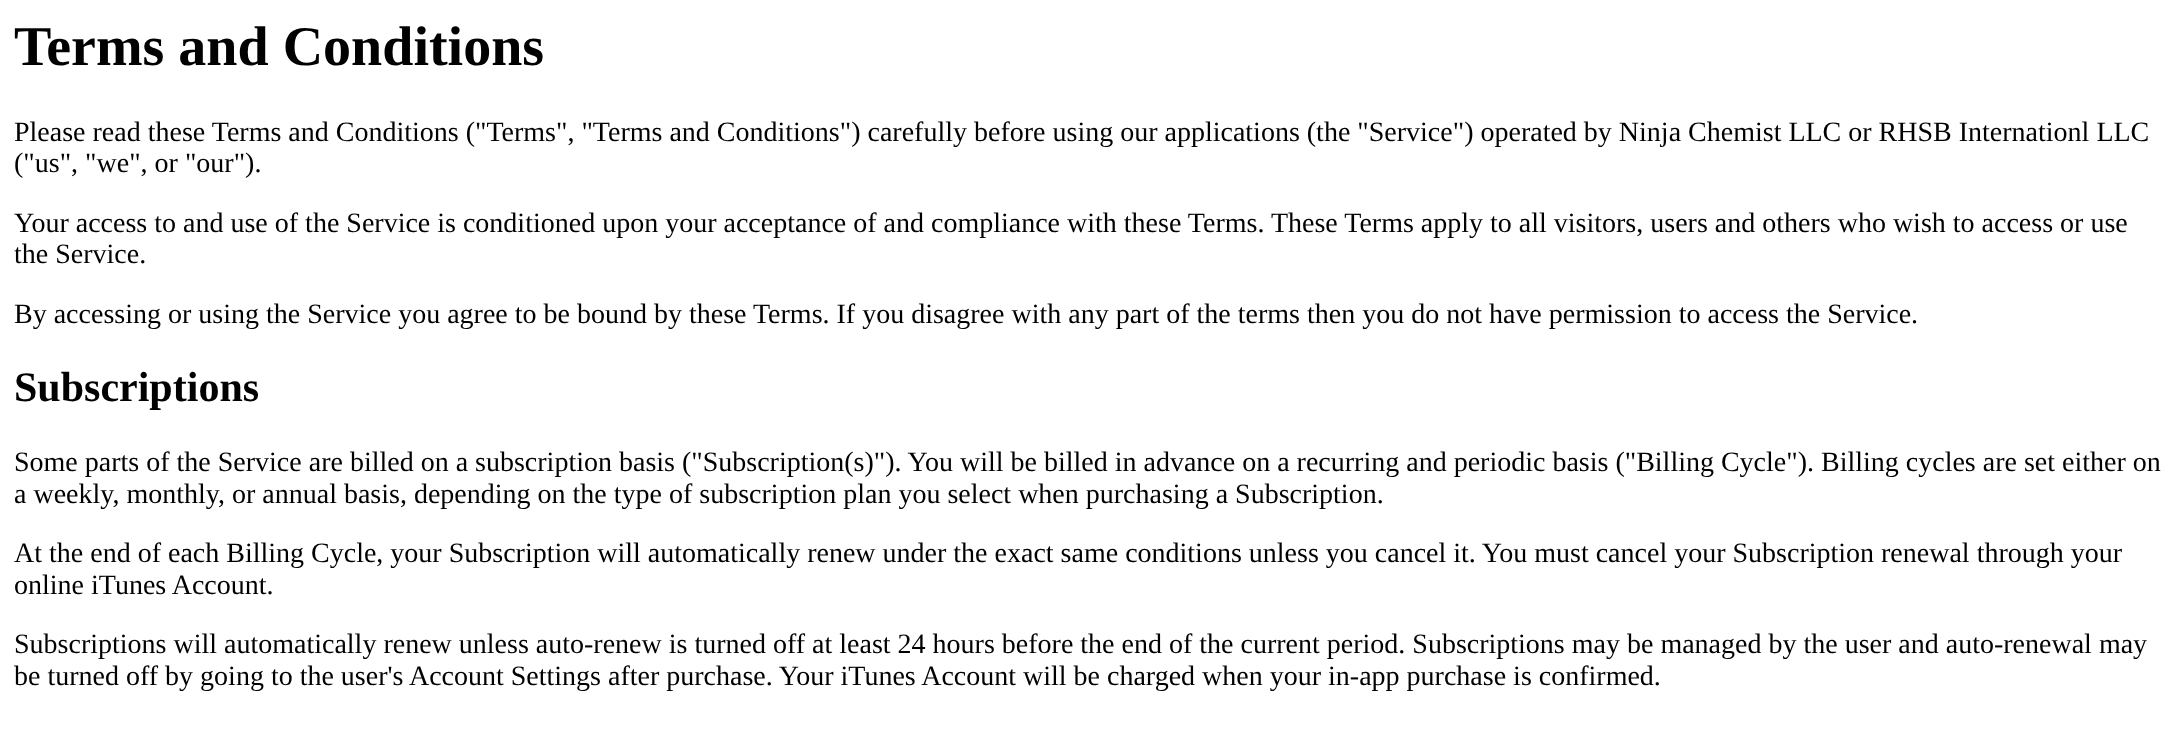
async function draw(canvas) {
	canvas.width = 2180;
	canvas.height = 734;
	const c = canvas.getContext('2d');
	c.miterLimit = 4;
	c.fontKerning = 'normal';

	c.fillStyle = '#fff';
	c.fillRect(0, 0, 2180, 734);
	c.font = 'bold 56px Liberation Serif';
	c.fillStyle = '#000';
	c.fillText('Terms and Conditions', 14, 65);
	c.font = '28px Liberation Serif';
	for (const [text, x, y] of [
		['Please read these Terms and Conditions ("Terms", "Terms and Conditions") carefully before using our applications (the "Service") operated by Ninja Chemist LLC or RHSB Internationl LLC', 14, 141],
		['("us", "we", or "our").', 14, 172],
		['Your access to and use of the Service is conditioned upon your acceptance of and compliance with these Terms. These Terms apply to all visitors, users and others who wish to access or use', 14, 232],
		['the Service.', 14, 263],
		['By accessing or using the Service you agree to be bound by these Terms. If you disagree with any part of the terms then you do not have permission to access the Service.', 14, 323],
	]) {
		c.fillText(text, x, y);
	}
	c.font = 'bold 42px Liberation Serif';
	c.fillText('Subscriptions', 14, 401);
	c.font = '28px Liberation Serif';
	for (const [text, x, y] of [
		['Some parts of the Service are billed on a subscription basis ("Subscription(s)"). You will be billed in advance on a recurring and periodic basis ("Billing Cycle"). Billing cycles are set either on', 14, 471],
		['a weekly, monthly, or annual basis, depending on the type of subscription plan you select when purchasing a Subscription.', 14, 503],
		['At the end of each Billing Cycle, your Subscription will automatically renew under the exact same conditions unless you cancel it. You must cancel your Subscription renewal through your', 14, 562],
		['online iTunes Account.', 14, 594],
		['Subscriptions will automatically renew unless auto-renew is turned off at least 24 hours before the end of the current period. Subscriptions may be managed by the user and auto-renewal may', 14, 653],
		['be turned off by going to the user\'s Account Settings after purchase. Your iTunes Account will be charged when your in-app purchase is confirmed.', 14, 685],
	]) {
		c.fillText(text, x, y);
	}
}

draw(document.querySelector('canvas'));
